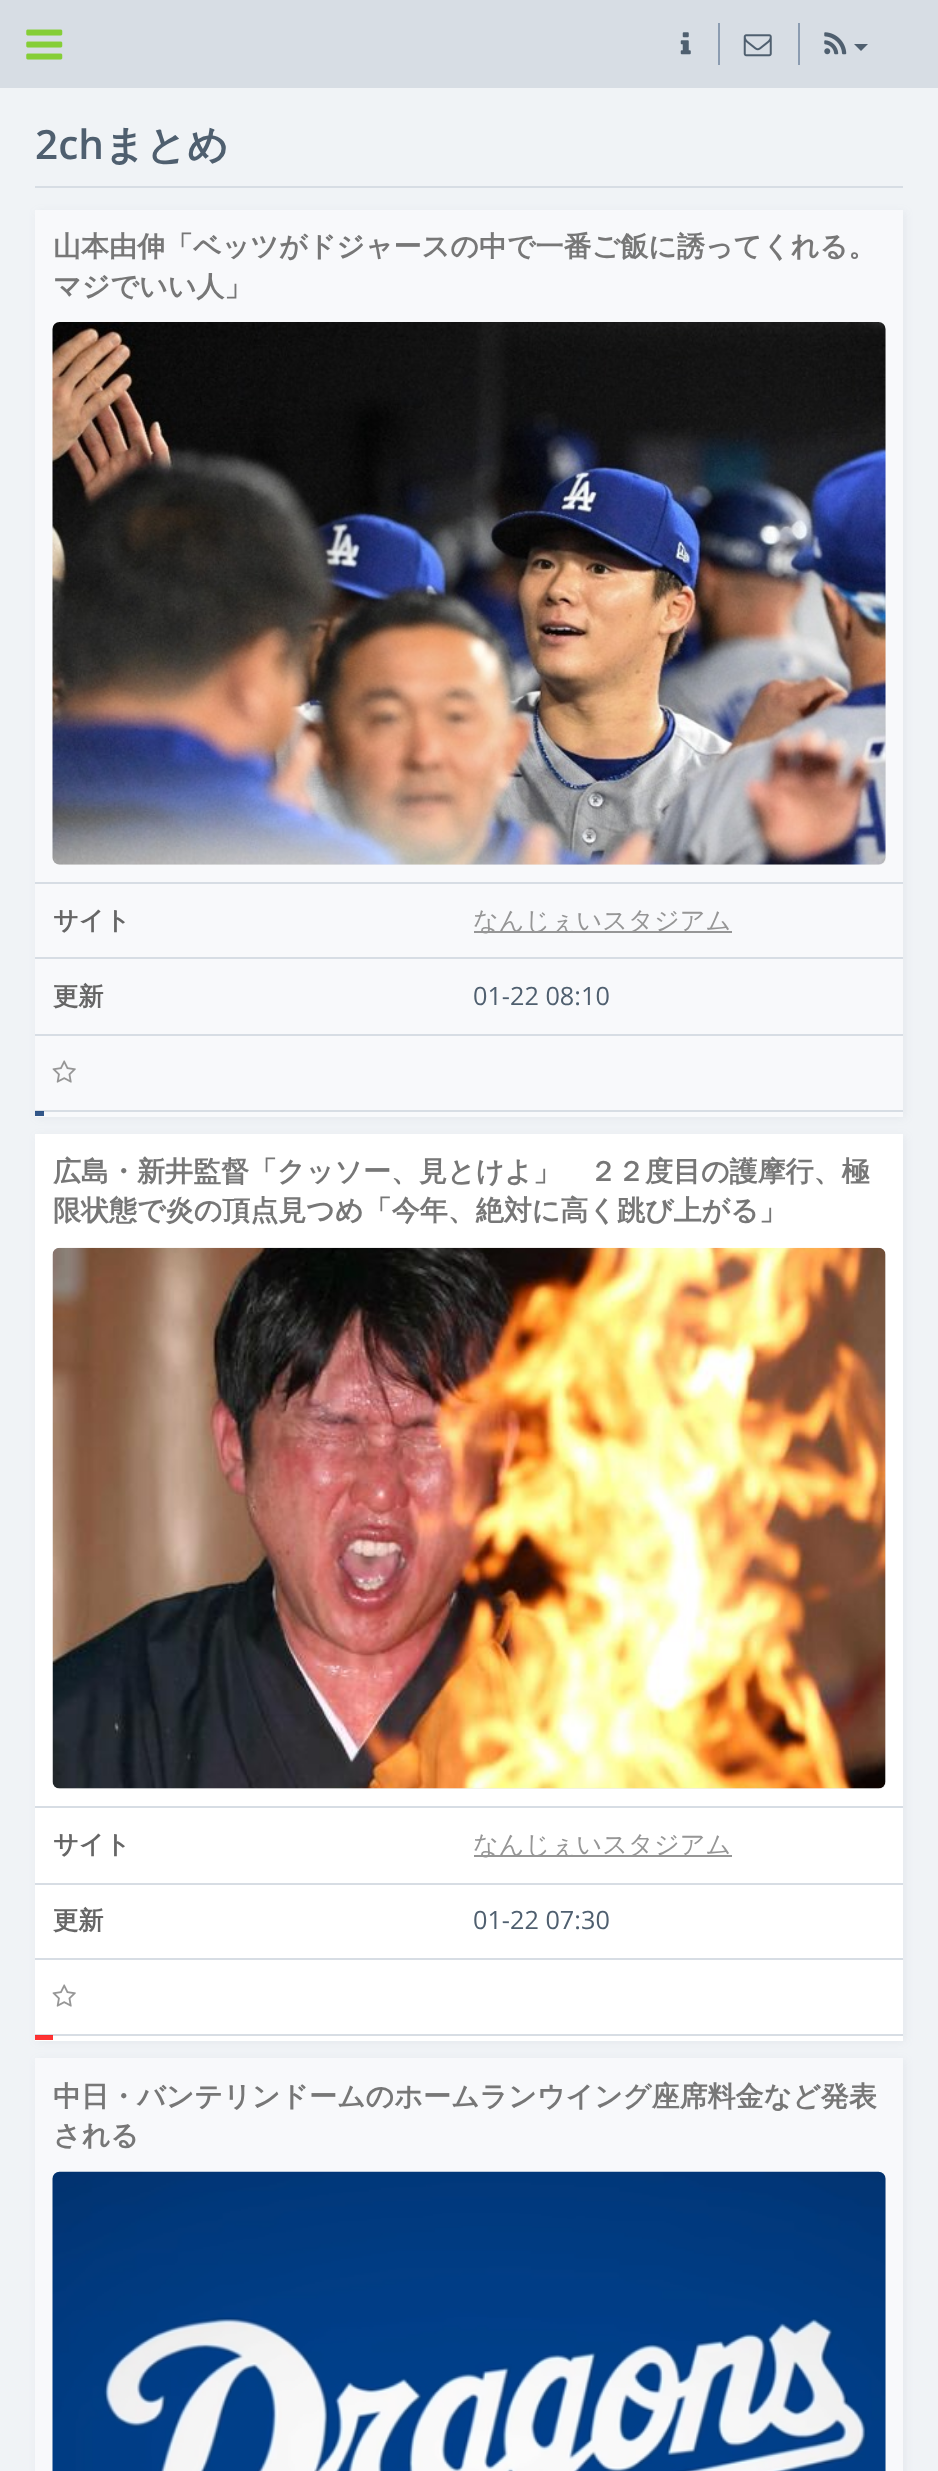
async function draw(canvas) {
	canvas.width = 938;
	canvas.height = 2471;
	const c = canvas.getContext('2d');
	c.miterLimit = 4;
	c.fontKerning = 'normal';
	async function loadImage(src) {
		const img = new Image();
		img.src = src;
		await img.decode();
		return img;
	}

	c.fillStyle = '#f0f3f6';
	c.fillRect(0, 0, 938, 2471);
	c.fillStyle = '#d7dde4';
	c.fillRect(0, 0, 938, 88);
	c.drawImage(await loadImage('img1.png'), 26, 29, 37, 31);
	c.drawImage(await loadImage('img2.png'), 680, 32, 11, 23);
	c.fillStyle = '#8b9cb1';
	c.fillRect(718, 23, 2, 42);
	c.drawImage(await loadImage('img3.png'), 743, 34, 29, 23);
	c.fillRect(798, 23, 2, 42);
	c.drawImage(await loadImage('img4.png'), 824, 32, 23, 23);
	c.fillStyle = '#4f5f6f';
	c.beginPath();
	c.moveTo(854, 44);
	c.lineTo(868, 44);
	c.lineTo(861, 51);
	c.closePath();
	c.fill();
	c.fillStyle = '#d7dde4';
	c.fillRect(35, 186, 868, 2);
	c.font = '600 40.5px Open Sans';
	c.fillStyle = '#4f5f6f';
	c.fillText('2ch', 35, 159);
	c.font = 'bold 40.5px WenQuanYi Zen Hei';
	c.fillText('まとめ', 104, 159);
	c.fillStyle = '#7e8e9f1a';
	c.filter = 'blur(4.5px)';
	c.beginPath();
	c.rect(37, 212, 868, 906);
	c.fill();
	c.filter = 'none';
	c.fillStyle = '#f8f9fb';
	c.fillRect(35, 210, 868, 907);
	c.fillStyle = '#325789';
	c.fillRect(35, 1112, 9, 4);
	c.font = 'bold 28px WenQuanYi Zen Hei';
	c.fillStyle = '#777';
	c.fillText('山本由伸「ベッツがドジャースの中で一番ご飯に誘ってくれる。', 53, 256);
	c.fillText('マジでいい人」', 53, 296);
	c.fillStyle = '#d7dde4';
	c.fillRect(35, 882, 868, 2);
	c.fillStyle = '#efefef';
	c.beginPath();
	c.roundRect(53, 322, 833, 543, 7);
	c.fill();
	c.drawImage(await loadImage('img5.png'), 52, 322, 834, 543);
	c.fillStyle = '#d7dde4';
	c.fillRect(35, 957, 868, 2);
	c.font = 'bold 25.25px WenQuanYi Zen Hei';
	c.fillStyle = '#666';
	c.fillText('サイト', 53, 929);
	c.fillStyle = '#969696';
	c.fillRect(474, 931, 258, 2);
	c.font = '500 25.25px WenQuanYi Zen Hei';
	c.fillText('なんじぇいスタジアム', 473, 929);
	c.fillStyle = '#d7dde4';
	c.fillRect(35, 1034, 868, 2);
	c.font = 'bold 25.25px WenQuanYi Zen Hei';
	c.fillStyle = '#666';
	c.fillText('更新', 53, 1005);
	c.font = '25.25px Open Sans';
	c.fillStyle = '#4f5f6f';
	c.fillText('01-22 08:10', 473, 1005);
	c.fillStyle = '#d7dde4';
	c.fillRect(35, 1110, 868, 2);
	c.fillStyle = '#2b5185';
	c.fillRect(35, 1111, 9, 1);
	c.drawImage(await loadImage('img6.png'), 52, 1060, 24, 23);
	c.fillStyle = '#7e8e9f1a';
	c.filter = 'blur(4.5px)';
	c.beginPath();
	c.rect(37, 1136, 868, 906);
	c.fill();
	c.filter = 'none';
	c.fillStyle = '#fff';
	c.fillRect(35, 1134, 868, 907);
	c.fillStyle = '#f33';
	c.fillRect(35, 2036, 18, 4);
	c.font = 'bold 28px WenQuanYi Zen Hei';
	c.fillStyle = '#777';
	c.fillText('広島・新井監督「クッソー、見とけよ」　２２度目の護摩行、極', 53, 1181);
	c.fillText('限状態で炎の頂点見つめ「今年、絶対に高く跳び上がる」', 53, 1220);
	c.fillStyle = '#d7dde4';
	c.fillRect(35, 1806, 868, 2);
	c.fillStyle = '#efefef';
	c.beginPath();
	c.roundRect(53, 1248, 833, 541, 7);
	c.fill();
	c.drawImage(await loadImage('img7.png'), 52, 1247, 834, 542);
	c.fillStyle = '#d7dde4';
	c.fillRect(35, 1883, 868, 2);
	c.font = 'bold 25.25px WenQuanYi Zen Hei';
	c.fillStyle = '#666';
	c.fillText('サイト', 53, 1853);
	c.fillStyle = '#969696';
	c.fillRect(474, 1855, 258, 2);
	c.font = '500 25.25px WenQuanYi Zen Hei';
	c.fillText('なんじぇいスタジアム', 473, 1853);
	c.fillStyle = '#d7dde4';
	c.fillRect(35, 1958, 868, 2);
	c.font = 'bold 25.25px WenQuanYi Zen Hei';
	c.fillStyle = '#666';
	c.fillText('更新', 53, 1929);
	c.font = '25.25px Open Sans';
	c.fillStyle = '#4f5f6f';
	c.fillText('01-22 07:30', 473, 1929);
	c.fillStyle = '#d7dde4';
	c.fillRect(35, 2034, 868, 2);
	c.fillStyle = '#f72c2e';
	c.fillRect(35, 2035, 18, 1);
	c.drawImage(await loadImage('img8.png'), 52, 1984, 24, 23);
	c.fillStyle = '#7e8e9f1a';
	c.filter = 'blur(4.5px)';
	c.beginPath();
	c.rect(37, 2060, 868, 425);
	c.fill();
	c.filter = 'none';
	c.fillStyle = '#f8f9fb';
	c.fillRect(35, 2058, 868, 413);
	c.font = 'bold 28px WenQuanYi Zen Hei';
	c.fillStyle = '#777';
	c.fillText('中日・バンテリンドームのホームランウイング座席料金など発表', 53, 2106);
	c.fillText('される', 53, 2145);
	c.fillStyle = '#efefef';
	c.beginPath();
	c.roundRect(53, 2172, 833, 299, [7, 7, 0, 0]);
	c.fill();
	c.drawImage(await loadImage('img9.png'), 52, 2171, 834, 300);
}

draw(document.querySelector('canvas'));
